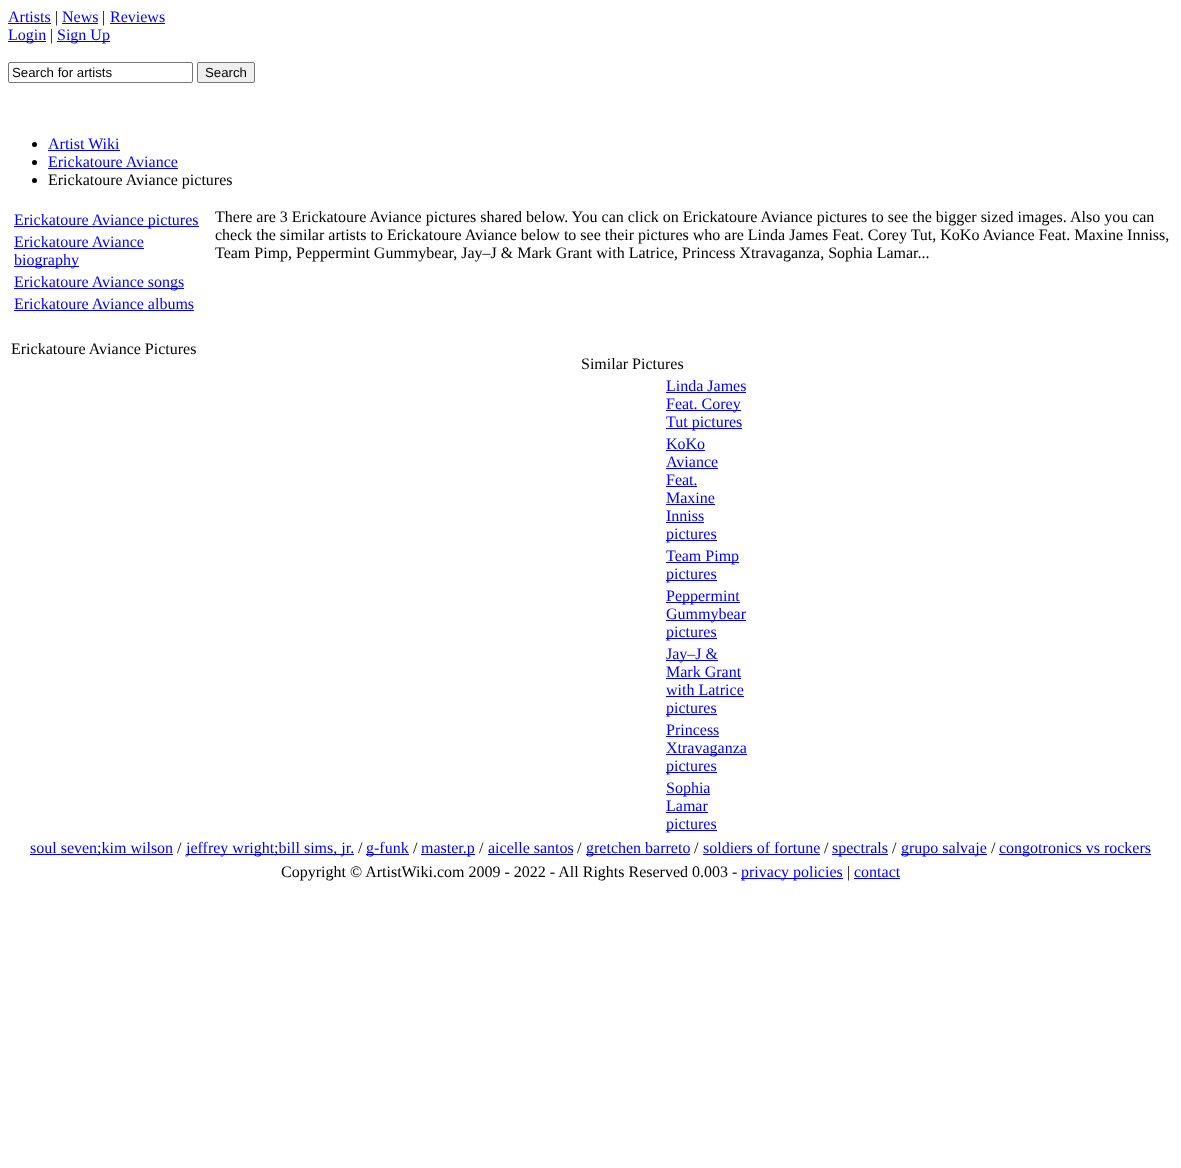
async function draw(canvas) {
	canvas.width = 1181;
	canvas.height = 1168;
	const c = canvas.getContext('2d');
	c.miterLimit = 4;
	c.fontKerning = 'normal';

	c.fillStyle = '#fff';
	c.fillRect(0, 0, 1181, 1168);
	c.font = '16px Liberation Serif';
	c.fillStyle = '#00e';
	c.fillText('Artists', 8, 22);
	c.fillRect(8, 23, 43, 1);
	c.fillStyle = '#000';
	c.fillText('|', 55, 22);
	c.fillStyle = '#00e';
	c.fillText('News', 62, 22);
	c.fillRect(62, 23, 36, 1);
	c.fillStyle = '#000';
	c.fillText('|', 102, 22);
	c.fillStyle = '#00e';
	c.fillText('Reviews', 110, 22);
	c.fillRect(110, 23, 55, 1);
	c.fillRect(8, 41, 38, 1);
	c.fillText('Login', 8, 40);
	c.fillStyle = '#000';
	c.fillText('|', 50, 40);
	c.fillStyle = '#00e';
	c.fillRect(57, 41, 53, 1);
	c.fillText('Sign Up', 57, 40);
	c.beginPath();
	c.roundRect(8.5, 62.5, 184, 20, 1.5);
	c.strokeStyle = '#767676';
	c.stroke();
	c.font = '13.25px Liberation Sans';
	c.fillStyle = '#000';
	c.fillText('Search for artists', 12, 77);
	c.fillStyle = '#efefef';
	c.beginPath();
	c.roundRect(197.5, 62.5, 57, 20, 1.5);
	c.fill();
	c.stroke();
	c.fillStyle = '#000';
	c.fillText('Search', 205, 77);
	c.beginPath();
	c.arc(34.5, 144.5, 2.5, 0, 2 * Math.PI);
	c.fill();
	c.font = '16px Liberation Serif';
	c.fillStyle = '#00e';
	c.fillText('Artist Wiki', 48, 149);
	c.fillRect(48, 150, 72, 1);
	c.fillStyle = '#000';
	c.beginPath();
	c.arc(34.5, 162.5, 2.5, 0, 2 * Math.PI);
	c.fill();
	c.fillStyle = '#00e';
	c.fillText('Erickatoure Aviance', 48, 167);
	c.fillRect(48, 168, 130, 1);
	c.fillStyle = '#000';
	c.beginPath();
	c.arc(34.5, 180.5, 2.5, 0, 2 * Math.PI);
	c.fill();
	c.fillText('Erickatoure Aviance pictures', 48, 185);
	c.fillStyle = '#00e';
	c.fillRect(14, 226, 185, 1);
	c.fillText('Erickatoure Aviance pictures', 14, 225);
	c.fillText('Erickatoure Aviance', 14, 247);
	c.fillRect(14, 248, 130, 1);
	c.fillRect(14, 266, 65, 1);
	c.fillText('biography', 14, 265);
	c.fillRect(14, 288, 170, 1);
	c.fillText('Erickatoure Aviance songs', 14, 287);
	c.fillText('Erickatoure Aviance albums', 14, 309);
	c.fillRect(14, 310, 180, 1);
	c.fillStyle = '#000';
	for (const [text, x, y] of [
		['There are 3 Erickatoure Aviance pictures shared below. You can click on Erickatoure Aviance pictures to see the bigger sized images. Also you can', 215, 222],
		['check the similar artists to Erickatoure Aviance below to see their pictures who are Linda James Feat. Corey Tut, KoKo Aviance Feat. Maxine Inniss,', 215, 240],
		['Team Pimp, Peppermint Gummybear, Jay–J & Mark Grant with Latrice, Princess Xtravaganza, Sophia Lamar...', 215, 258],
		['Erickatoure Aviance Pictures', 11, 354],
		['Similar Pictures', 581, 369],
	]) {
		c.fillText(text, x, y);
	}
	c.fillStyle = '#00e';
	c.fillText('Linda James', 666, 391);
	c.fillRect(666, 392, 80, 1);
	c.fillRect(666, 410, 75, 1);
	c.fillText('Feat. Corey', 666, 409);
	c.fillRect(666, 428, 76, 1);
	c.fillText('Tut pictures', 666, 427);
	c.fillText('KoKo', 666, 449);
	c.fillRect(666, 450, 39, 1);
	c.fillText('Aviance', 666, 467);
	c.fillRect(666, 468, 52, 1);
	c.fillText('Feat.', 666, 485);
	c.fillRect(666, 486, 31, 1);
	c.fillText('Maxine', 666, 503);
	c.fillRect(666, 504, 49, 1);
	c.fillText('Inniss', 666, 521);
	c.fillRect(666, 522, 38, 1);
	c.fillRect(666, 540, 51, 1);
	c.fillText('pictures', 666, 539);
	c.fillRect(666, 562, 73, 1);
	c.fillText('Team Pimp', 666, 561);
	c.fillRect(666, 580, 51, 1);
	c.fillText('pictures', 666, 579);
	c.fillRect(666, 602, 74, 1);
	c.fillText('Peppermint', 666, 601);
	c.fillRect(666, 620, 80, 1);
	c.fillText('Gummybear', 666, 619);
	c.fillRect(666, 638, 51, 1);
	c.fillText('pictures', 666, 637);
	c.fillRect(666, 660, 52, 1);
	c.fillText('Jay–J &', 666, 659);
	c.fillText('Mark Grant', 666, 677);
	c.fillRect(666, 678, 75, 1);
	c.fillText('with Latrice', 666, 695);
	c.fillRect(666, 696, 78, 1);
	c.fillRect(666, 714, 51, 1);
	c.fillText('pictures', 666, 713);
	c.fillText('Princess', 666, 735);
	c.fillRect(666, 736, 53, 1);
	c.fillRect(666, 754, 81, 1);
	c.fillText('Xtravaganza', 666, 753);
	c.fillRect(666, 772, 51, 1);
	c.fillText('pictures', 666, 771);
	c.fillRect(666, 794, 44, 1);
	c.fillText('Sophia', 666, 793);
	c.fillText('Lamar', 666, 811);
	c.fillRect(666, 812, 42, 1);
	c.fillRect(666, 830, 51, 1);
	c.fillText('pictures', 666, 829);
	c.fillRect(30, 854, 143, 1);
	c.fillText('soul seven;kim wilson', 30, 853);
	c.fillStyle = '#000';
	c.fillText('/', 177, 853);
	c.fillStyle = '#00e';
	c.fillRect(186, 854, 168, 1);
	c.fillText('jeffrey wright;bill sims, jr.', 186, 853);
	c.fillStyle = '#000';
	c.fillText('/', 358, 853);
	c.fillStyle = '#00e';
	c.fillRect(366, 854, 43, 1);
	c.fillText('g-funk', 366, 853);
	c.fillStyle = '#000';
	c.fillText('/', 413, 853);
	c.fillStyle = '#00e';
	c.fillRect(421, 854, 54, 1);
	c.fillText('master.p', 421, 853);
	c.fillStyle = '#000';
	c.fillText('/', 479, 853);
	c.fillStyle = '#00e';
	c.fillText('aicelle santos', 488, 853);
	c.fillRect(488, 854, 85, 1);
	c.fillStyle = '#000';
	c.fillText('/', 577, 853);
	c.fillStyle = '#00e';
	c.fillRect(586, 854, 104, 1);
	c.fillText('gretchen barreto', 586, 853);
	c.fillStyle = '#000';
	c.fillText('/', 694, 853);
	c.fillStyle = '#00e';
	c.fillText('soldiers of fortune', 703, 853);
	c.fillRect(703, 854, 117, 1);
	c.fillStyle = '#000';
	c.fillText('/', 824, 853);
	c.fillStyle = '#00e';
	c.fillRect(832, 854, 56, 1);
	c.fillText('spectrals', 832, 853);
	c.fillStyle = '#000';
	c.fillText('/', 892, 853);
	c.fillStyle = '#00e';
	c.fillRect(901, 854, 86, 1);
	c.fillText('grupo salvaje', 901, 853);
	c.fillStyle = '#000';
	c.fillText('/', 991, 853);
	c.fillStyle = '#00e';
	c.fillRect(999, 854, 152, 1);
	c.fillText('congotronics vs rockers', 999, 853);
	c.fillStyle = '#000';
	c.fillText('Copyright © ArtistWiki.com 2009 - 2022 - All Rights Reserved 0.003 -', 281, 877);
	c.fillStyle = '#00e';
	c.fillRect(741, 878, 102, 1);
	c.fillText('privacy policies', 741, 877);
	c.fillStyle = '#000';
	c.fillText('|', 847, 877);
	c.fillStyle = '#00e';
	c.fillText('contact', 854, 877);
	c.fillRect(854, 878, 46, 1);
}

draw(document.querySelector('canvas'));
